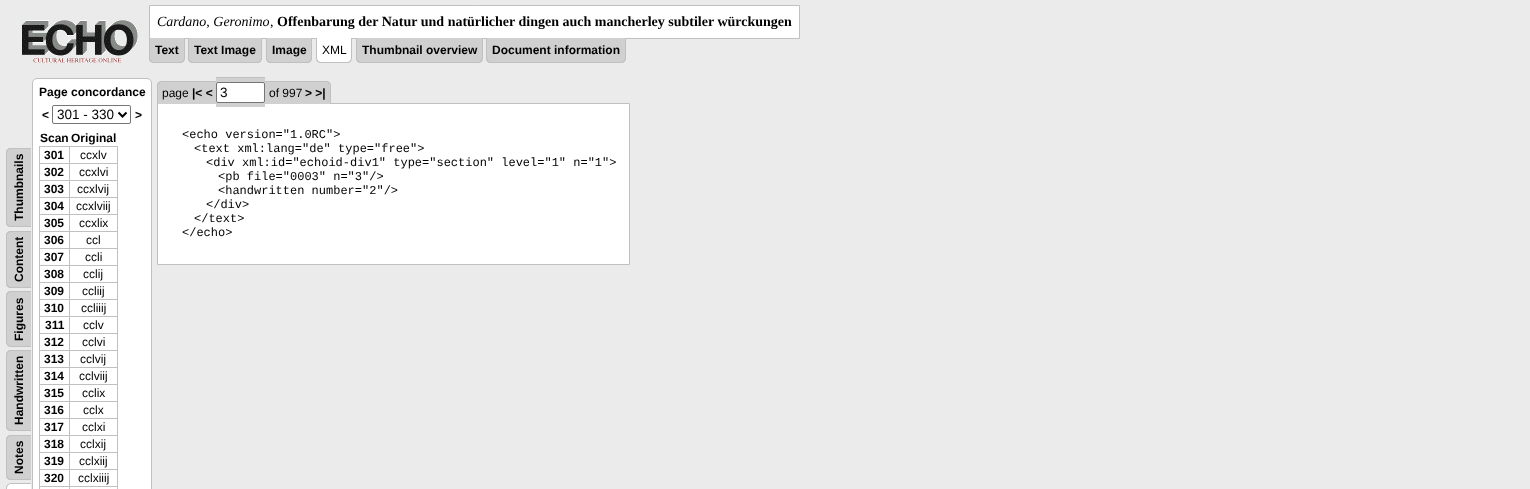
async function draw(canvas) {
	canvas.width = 1530;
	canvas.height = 489;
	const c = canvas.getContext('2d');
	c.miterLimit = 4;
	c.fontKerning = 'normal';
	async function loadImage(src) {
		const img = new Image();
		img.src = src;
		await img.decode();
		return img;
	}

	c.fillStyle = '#ebebeb';
	c.fillRect(0, 0, 1530, 489);
	c.drawImage(await loadImage('img1.png'), 22, 20, 116, 43);
	c.fillStyle = '#fff';
	c.beginPath();
	c.rect(149.5, 5.5, 650, 33);
	c.fill();
	c.strokeStyle = '#c0c0c0';
	c.stroke();
	c.font = 'italic 14px Liberation Serif';
	c.fillStyle = '#000';
	c.fillText('Cardano, Geronimo', 157, 26);
	c.font = '14px Liberation Serif';
	c.fillText(',', 270, 26);
	c.font = 'bold 14px Liberation Serif';
	c.fillText('Offenbarung der Natur und natürlicher dingen auch mancherley subtiler würckungen', 277, 26);
	c.fillStyle = '#d0d0d0';
	c.beginPath();
	c.roundRect(149, 38, 36, 25, [0, 0, 5, 5]);
	c.fill();
	c.fillStyle = '#c0c0c0';
	c.beginPath();
	c.moveTo(149, 38);
	c.lineTo(185, 38);
	c.lineTo(185, 58);
	c.bezierCurveTo(185, 61, 183, 63, 180, 63);
	c.lineTo(154, 63);
	c.bezierCurveTo(151, 63, 149, 61, 149, 58);
	c.closePath();
	c.moveTo(150, 38);
	c.lineTo(184, 38);
	c.lineTo(184, 58);
	c.bezierCurveTo(184, 60, 182, 62, 180, 62);
	c.lineTo(154, 62);
	c.bezierCurveTo(152, 62, 150, 60, 150, 58);
	c.closePath();
	c.fill('evenodd');
	c.font = 'bold 12px Liberation Sans';
	c.fillStyle = '#000';
	c.fillText('Text', 155, 54);
	c.fillStyle = '#d0d0d0';
	c.beginPath();
	c.roundRect(188, 38, 74, 25, [0, 0, 5, 5]);
	c.fill();
	c.fillStyle = '#c0c0c0';
	c.beginPath();
	c.moveTo(188, 38);
	c.lineTo(262, 38);
	c.lineTo(262, 58);
	c.bezierCurveTo(262, 61, 260, 63, 257, 63);
	c.lineTo(193, 63);
	c.bezierCurveTo(190, 63, 188, 61, 188, 58);
	c.closePath();
	c.moveTo(189, 38);
	c.lineTo(261, 38);
	c.lineTo(261, 58);
	c.bezierCurveTo(261, 60, 259, 62, 257, 62);
	c.lineTo(193, 62);
	c.bezierCurveTo(191, 62, 189, 60, 189, 58);
	c.closePath();
	c.fill('evenodd');
	c.fillStyle = '#000';
	c.fillText('Text Image', 194, 54);
	c.fillStyle = '#d0d0d0';
	c.beginPath();
	c.roundRect(266, 38, 46, 25, [0, 0, 5, 5]);
	c.fill();
	c.fillStyle = '#c0c0c0';
	c.beginPath();
	c.moveTo(266, 38);
	c.lineTo(312, 38);
	c.lineTo(312, 58);
	c.bezierCurveTo(312, 61, 310, 63, 307, 63);
	c.lineTo(271, 63);
	c.bezierCurveTo(268, 63, 266, 61, 266, 58);
	c.closePath();
	c.moveTo(267, 38);
	c.lineTo(311, 38);
	c.lineTo(311, 58);
	c.bezierCurveTo(311, 60, 309, 62, 307, 62);
	c.lineTo(271, 62);
	c.bezierCurveTo(269, 62, 267, 60, 267, 58);
	c.closePath();
	c.fill('evenodd');
	c.fillStyle = '#000';
	c.fillText('Image', 272, 54);
	c.fillStyle = '#fff';
	c.beginPath();
	c.roundRect(316, 38, 36, 25, [0, 0, 5, 5]);
	c.fill();
	c.fillStyle = '#c0c0c0';
	c.beginPath();
	c.moveTo(316, 38);
	c.lineTo(352, 38);
	c.lineTo(352, 58);
	c.bezierCurveTo(352, 61, 350, 63, 347, 63);
	c.lineTo(321, 63);
	c.bezierCurveTo(318, 63, 316, 61, 316, 58);
	c.closePath();
	c.moveTo(317, 38);
	c.lineTo(351, 38);
	c.lineTo(351, 58);
	c.bezierCurveTo(351, 60, 349, 62, 347, 62);
	c.lineTo(321, 62);
	c.bezierCurveTo(319, 62, 317, 60, 317, 58);
	c.closePath();
	c.fill('evenodd');
	c.font = '12px Liberation Sans';
	c.fillStyle = '#000';
	c.fillText('XML', 322, 54);
	c.fillStyle = '#d0d0d0';
	c.beginPath();
	c.roundRect(356, 38, 127, 25, [0, 0, 5, 5]);
	c.fill();
	c.fillStyle = '#c0c0c0';
	c.beginPath();
	c.moveTo(356, 38);
	c.lineTo(483, 38);
	c.lineTo(483, 58);
	c.bezierCurveTo(483, 61, 481, 63, 478, 63);
	c.lineTo(361, 63);
	c.bezierCurveTo(358, 63, 356, 61, 356, 58);
	c.closePath();
	c.moveTo(357, 38);
	c.lineTo(482, 38);
	c.lineTo(482, 58);
	c.bezierCurveTo(482, 60, 480, 62, 478, 62);
	c.lineTo(361, 62);
	c.bezierCurveTo(359, 62, 357, 60, 357, 58);
	c.closePath();
	c.fill('evenodd');
	c.font = 'bold 12px Liberation Sans';
	c.fillStyle = '#000';
	c.fillText('Thumbnail overview', 362, 54);
	c.fillStyle = '#d0d0d0';
	c.beginPath();
	c.roundRect(486, 38, 140, 25, [0, 0, 5, 5]);
	c.fill();
	c.fillStyle = '#c0c0c0';
	c.beginPath();
	c.moveTo(486, 38);
	c.lineTo(626, 38);
	c.lineTo(626, 58);
	c.bezierCurveTo(626, 61, 624, 63, 621, 63);
	c.lineTo(491, 63);
	c.bezierCurveTo(488, 63, 486, 61, 486, 58);
	c.closePath();
	c.moveTo(487, 38);
	c.lineTo(625, 38);
	c.lineTo(625, 58);
	c.bezierCurveTo(625, 60, 623, 62, 621, 62);
	c.lineTo(491, 62);
	c.bezierCurveTo(489, 62, 487, 60, 487, 58);
	c.closePath();
	c.fill('evenodd');
	c.fillStyle = '#000';
	c.fillText('Document information', 492, 54);
	c.fillStyle = '#d0d0d0';
	c.beginPath();
	c.moveTo(6, 222);
	c.lineTo(6, 153);
	c.bezierCurveTo(6, 150, 8, 148, 11, 148);
	c.lineTo(31, 148);
	c.lineTo(31, 227);
	c.lineTo(11, 227);
	c.bezierCurveTo(8, 227, 6, 225, 6, 222);
	c.closePath();
	c.fill();
	c.fillStyle = '#c0c0c0';
	c.beginPath();
	c.moveTo(6, 222);
	c.lineTo(6, 153);
	c.bezierCurveTo(6, 150, 8, 148, 11, 148);
	c.lineTo(31, 148);
	c.lineTo(31, 227);
	c.lineTo(11, 227);
	c.bezierCurveTo(8, 227, 6, 225, 6, 222);
	c.closePath();
	c.moveTo(7, 222);
	c.lineTo(7, 153);
	c.bezierCurveTo(7, 151, 9, 149, 11, 149);
	c.lineTo(31, 149);
	c.lineTo(31, 226);
	c.lineTo(11, 226);
	c.bezierCurveTo(9, 226, 7, 224, 7, 222);
	c.closePath();
	c.fill('evenodd');
	c.fillStyle = '#000';
	c.save();
	c.translate(23, 221);
	c.rotate(-90 * Math.PI / 180);
	c.fillText('Thumbnails', 0, 0);
	c.restore();
	c.fillStyle = '#d0d0d0';
	c.beginPath();
	c.moveTo(6, 283);
	c.lineTo(6, 236);
	c.bezierCurveTo(6, 233, 8, 231, 11, 231);
	c.lineTo(31, 231);
	c.lineTo(31, 288);
	c.lineTo(11, 288);
	c.bezierCurveTo(8, 288, 6, 286, 6, 283);
	c.closePath();
	c.fill();
	c.fillStyle = '#c0c0c0';
	c.beginPath();
	c.moveTo(6, 283);
	c.lineTo(6, 236);
	c.bezierCurveTo(6, 233, 8, 231, 11, 231);
	c.lineTo(31, 231);
	c.lineTo(31, 288);
	c.lineTo(11, 288);
	c.bezierCurveTo(8, 288, 6, 286, 6, 283);
	c.closePath();
	c.moveTo(7, 283);
	c.lineTo(7, 236);
	c.bezierCurveTo(7, 233, 9, 232, 11, 232);
	c.lineTo(31, 232);
	c.lineTo(31, 287);
	c.lineTo(11, 287);
	c.bezierCurveTo(9, 287, 7, 285, 7, 283);
	c.closePath();
	c.fill('evenodd');
	c.fillStyle = '#000';
	c.save();
	c.translate(23, 282);
	c.rotate(-90 * Math.PI / 180);
	c.fillText('Content', 0, 0);
	c.restore();
	c.fillStyle = '#d0d0d0';
	c.beginPath();
	c.moveTo(6, 342);
	c.lineTo(6, 296);
	c.bezierCurveTo(6, 293, 8, 291, 11, 291);
	c.lineTo(31, 291);
	c.lineTo(31, 347);
	c.lineTo(11, 347);
	c.bezierCurveTo(8, 347, 6, 344, 6, 342);
	c.closePath();
	c.fill();
	c.fillStyle = '#c0c0c0';
	c.beginPath();
	c.moveTo(6, 342);
	c.lineTo(6, 296);
	c.bezierCurveTo(6, 293, 8, 291, 11, 291);
	c.lineTo(31, 291);
	c.lineTo(31, 347);
	c.lineTo(11, 347);
	c.bezierCurveTo(8, 347, 6, 344, 6, 342);
	c.closePath();
	c.moveTo(7, 342);
	c.lineTo(7, 296);
	c.bezierCurveTo(7, 294, 9, 292, 11, 292);
	c.lineTo(31, 292);
	c.lineTo(31, 346);
	c.lineTo(11, 346);
	c.bezierCurveTo(9, 346, 7, 344, 7, 342);
	c.closePath();
	c.fill('evenodd');
	c.fillStyle = '#000';
	c.save();
	c.translate(23, 341);
	c.rotate(-90 * Math.PI / 180);
	c.fillText('Figures', 0, 0);
	c.restore();
	c.fillStyle = '#d0d0d0';
	c.beginPath();
	c.moveTo(6, 426);
	c.lineTo(6, 355);
	c.bezierCurveTo(6, 352, 8, 350, 11, 350);
	c.lineTo(31, 350);
	c.lineTo(31, 431);
	c.lineTo(11, 431);
	c.bezierCurveTo(8, 431, 6, 429, 6, 426);
	c.closePath();
	c.fill();
	c.fillStyle = '#c0c0c0';
	c.beginPath();
	c.moveTo(6, 426);
	c.lineTo(6, 355);
	c.bezierCurveTo(6, 352, 8, 350, 11, 350);
	c.lineTo(31, 350);
	c.lineTo(31, 431);
	c.lineTo(11, 431);
	c.bezierCurveTo(8, 431, 6, 429, 6, 426);
	c.closePath();
	c.moveTo(7, 426);
	c.lineTo(7, 355);
	c.bezierCurveTo(7, 353, 9, 351, 11, 351);
	c.lineTo(31, 351);
	c.lineTo(31, 430);
	c.lineTo(11, 430);
	c.bezierCurveTo(9, 430, 7, 428, 7, 426);
	c.closePath();
	c.fill('evenodd');
	c.fillStyle = '#000';
	c.save();
	c.translate(23, 425);
	c.rotate(-90 * Math.PI / 180);
	c.fillText('Handwritten', 0, 0);
	c.restore();
	c.fillStyle = '#d0d0d0';
	c.beginPath();
	c.moveTo(6, 475);
	c.lineTo(6, 440);
	c.bezierCurveTo(6, 437, 8, 435, 11, 435);
	c.lineTo(31, 435);
	c.lineTo(31, 480);
	c.lineTo(11, 480);
	c.bezierCurveTo(8, 480, 6, 478, 6, 475);
	c.closePath();
	c.fill();
	c.fillStyle = '#c0c0c0';
	c.beginPath();
	c.moveTo(6, 475);
	c.lineTo(6, 440);
	c.bezierCurveTo(6, 437, 8, 435, 11, 435);
	c.lineTo(31, 435);
	c.lineTo(31, 480);
	c.lineTo(11, 480);
	c.bezierCurveTo(8, 480, 6, 478, 6, 475);
	c.closePath();
	c.moveTo(7, 475);
	c.lineTo(7, 440);
	c.bezierCurveTo(7, 437, 9, 436, 11, 436);
	c.lineTo(31, 436);
	c.lineTo(31, 479);
	c.lineTo(11, 479);
	c.bezierCurveTo(9, 479, 7, 477, 7, 475);
	c.closePath();
	c.fill('evenodd');
	c.fillStyle = '#000';
	c.save();
	c.translate(23, 474);
	c.rotate(-90 * Math.PI / 180);
	c.fillText('Notes', 0, 0);
	c.restore();
	c.fillStyle = '#fff';
	c.beginPath();
	c.moveTo(6, 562);
	c.lineTo(6, 488);
	c.bezierCurveTo(6, 486, 8, 483, 11, 483);
	c.lineTo(31, 483);
	c.lineTo(31, 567);
	c.lineTo(11, 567);
	c.bezierCurveTo(8, 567, 6, 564, 6, 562);
	c.closePath();
	c.fill();
	c.fillStyle = '#c0c0c0';
	c.beginPath();
	c.moveTo(6, 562);
	c.lineTo(6, 488);
	c.bezierCurveTo(6, 486, 8, 483, 11, 483);
	c.lineTo(31, 483);
	c.lineTo(31, 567);
	c.lineTo(11, 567);
	c.bezierCurveTo(8, 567, 6, 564, 6, 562);
	c.closePath();
	c.moveTo(7, 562);
	c.lineTo(7, 488);
	c.bezierCurveTo(7, 486, 9, 484, 11, 484);
	c.lineTo(31, 484);
	c.lineTo(31, 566);
	c.lineTo(11, 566);
	c.bezierCurveTo(9, 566, 7, 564, 7, 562);
	c.closePath();
	c.fill('evenodd');
	c.fillStyle = '#fff';
	c.beginPath();
	c.roundRect(32.5, 78.5, 119, 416, 4.5);
	c.fill();
	c.stroke();
	c.fillStyle = '#000';
	c.fillText('Page concordance', 39, 96);
	c.fillText('<', 42, 119);
	c.beginPath();
	c.roundRect(52.5, 105.5, 78, 18, 1.5);
	c.strokeStyle = '#767676';
	c.stroke();
	c.beginPath();
	c.moveTo(118.5, 112.5);
	c.lineTo(122.5, 116.5);
	c.lineTo(126.5, 112.5);
	c.strokeStyle = '#000';
	c.lineWidth = 2;
	c.stroke();
	c.font = '13.5px Liberation Sans';
	c.fillText('301 - 330', 57, 119);
	c.font = 'bold 12px Liberation Sans';
	for (const [text, x, y] of [
		['>', 135, 119],
		['Scan', 40, 142],
		['Original', 71, 142],
	]) {
		c.fillText(text, x, y);
	}
	for (const [x, y, w, h, color] of [
		[69, 146, 49, 1, '#c0c0c0'],
		[69, 163, 49, 1, '#c0c0c0'],
		[69, 180, 49, 1, '#c0c0c0'],
		[69, 197, 49, 1, '#c0c0c0'],
		[69, 214, 49, 1, '#c0c0c0'],
		[69, 231, 49, 1, '#c0c0c0'],
		[69, 248, 49, 1, '#c0c0c0'],
		[69, 265, 49, 1, '#c0c0c0'],
		[69, 282, 49, 1, '#c0c0c0'],
		[69, 299, 49, 1, '#c0c0c0'],
		[69, 316, 49, 1, '#c0c0c0'],
		[69, 333, 49, 1, '#c0c0c0'],
		[69, 350, 49, 1, '#c0c0c0'],
		[69, 367, 49, 1, '#c0c0c0'],
		[69, 384, 49, 1, '#c0c0c0'],
		[69, 401, 49, 1, '#c0c0c0'],
		[69, 418, 49, 1, '#c0c0c0'],
		[69, 435, 49, 1, '#c0c0c0'],
		[69, 452, 49, 1, '#c0c0c0'],
		[69, 469, 49, 1, '#c0c0c0'],
		[69, 486, 49, 1, '#c0c0c0'],
		[69, 486, 1, 3, '#c0c0c0'],
		[39, 486, 31, 1, '#c0c0c0'],
		[69, 469, 1, 18, '#c0c0c0'],
		[39, 469, 31, 1, '#c0c0c0'],
		[69, 452, 1, 18, '#c0c0c0'],
		[39, 452, 31, 1, '#c0c0c0'],
		[69, 435, 1, 18, '#c0c0c0'],
		[39, 435, 31, 1, '#c0c0c0'],
		[69, 418, 1, 18, '#c0c0c0'],
		[39, 418, 31, 1, '#c0c0c0'],
		[69, 401, 1, 18, '#c0c0c0'],
		[39, 401, 31, 1, '#c0c0c0'],
		[69, 384, 1, 18, '#c0c0c0'],
		[39, 384, 31, 1, '#c0c0c0'],
		[69, 367, 1, 18, '#c0c0c0'],
		[39, 367, 31, 1, '#c0c0c0'],
		[69, 350, 1, 18, '#c0c0c0'],
		[39, 350, 31, 1, '#c0c0c0'],
		[69, 333, 1, 18, '#c0c0c0'],
		[39, 333, 31, 1, '#c0c0c0'],
		[69, 316, 1, 18, '#c0c0c0'],
		[39, 316, 31, 1, '#c0c0c0'],
		[69, 299, 1, 18, '#c0c0c0'],
		[39, 299, 31, 1, '#c0c0c0'],
		[69, 282, 1, 18, '#c0c0c0'],
		[39, 282, 31, 1, '#c0c0c0'],
		[69, 265, 1, 18, '#c0c0c0'],
		[39, 265, 31, 1, '#c0c0c0'],
		[69, 248, 1, 18, '#c0c0c0'],
		[39, 248, 31, 1, '#c0c0c0'],
		[69, 231, 1, 18, '#c0c0c0'],
		[39, 231, 31, 1, '#c0c0c0'],
		[69, 214, 1, 18, '#c0c0c0'],
		[39, 214, 31, 1, '#c0c0c0'],
		[69, 197, 1, 18, '#c0c0c0'],
		[39, 197, 31, 1, '#c0c0c0'],
		[69, 180, 1, 18, '#c0c0c0'],
		[39, 180, 31, 1, '#c0c0c0'],
		[69, 163, 1, 18, '#c0c0c0'],
		[39, 163, 31, 1, '#c0c0c0'],
		[69, 146, 1, 18, '#c0c0c0'],
		[39, 146, 31, 1, '#c0c0c0'],
		[39, 486, 1, 3, '#c0c0c0'],
		[39, 469, 1, 18, '#c0c0c0'],
		[39, 452, 1, 18, '#c0c0c0'],
		[39, 435, 1, 18, '#c0c0c0'],
		[39, 418, 1, 18, '#c0c0c0'],
		[39, 401, 1, 18, '#c0c0c0'],
		[39, 384, 1, 18, '#c0c0c0'],
		[39, 367, 1, 18, '#c0c0c0'],
		[39, 350, 1, 18, '#c0c0c0'],
		[39, 333, 1, 18, '#c0c0c0'],
		[39, 316, 1, 18, '#c0c0c0'],
		[39, 299, 1, 18, '#c0c0c0'],
		[39, 282, 1, 18, '#c0c0c0'],
		[39, 265, 1, 18, '#c0c0c0'],
		[39, 248, 1, 18, '#c0c0c0'],
		[39, 231, 1, 18, '#c0c0c0'],
		[39, 214, 1, 18, '#c0c0c0'],
		[39, 197, 1, 18, '#c0c0c0'],
		[39, 180, 1, 18, '#c0c0c0'],
		[39, 163, 1, 18, '#c0c0c0'],
		[39, 146, 1, 18, '#c0c0c0'],
	]) {
		c.fillStyle = color;
		c.fillRect(x, y, w, h);
	}
	c.fillStyle = '#000';
	c.fillText('301', 44, 159);
	for (const [x, y, w, h, color] of [
		[117, 486, 1, 3, '#c0c0c0'],
		[117, 469, 1, 18, '#c0c0c0'],
		[117, 452, 1, 18, '#c0c0c0'],
		[117, 435, 1, 18, '#c0c0c0'],
		[117, 418, 1, 18, '#c0c0c0'],
		[117, 401, 1, 18, '#c0c0c0'],
		[117, 384, 1, 18, '#c0c0c0'],
		[117, 367, 1, 18, '#c0c0c0'],
		[117, 350, 1, 18, '#c0c0c0'],
		[117, 333, 1, 18, '#c0c0c0'],
		[117, 316, 1, 18, '#c0c0c0'],
		[117, 299, 1, 18, '#c0c0c0'],
		[117, 282, 1, 18, '#c0c0c0'],
		[117, 265, 1, 18, '#c0c0c0'],
		[117, 248, 1, 18, '#c0c0c0'],
		[117, 231, 1, 18, '#c0c0c0'],
		[117, 214, 1, 18, '#c0c0c0'],
		[117, 197, 1, 18, '#c0c0c0'],
		[117, 180, 1, 18, '#c0c0c0'],
		[117, 163, 1, 18, '#c0c0c0'],
		[117, 146, 1, 18, '#c0c0c0'],
	]) {
		c.fillStyle = color;
		c.fillRect(x, y, w, h);
	}
	c.font = '12px Liberation Sans';
	c.fillStyle = '#000';
	c.fillText('ccxlv', 80, 159);
	c.font = 'bold 12px Liberation Sans';
	c.fillText('302', 44, 176);
	c.font = '12px Liberation Sans';
	c.fillText('ccxlvi', 79, 176);
	c.font = 'bold 12px Liberation Sans';
	c.fillText('303', 44, 193);
	c.font = '12px Liberation Sans';
	c.fillText('ccxlvĳ', 77, 193);
	c.font = 'bold 12px Liberation Sans';
	c.fillText('304', 44, 210);
	c.font = '12px Liberation Sans';
	c.fillText('ccxlviĳ', 76, 210);
	c.font = 'bold 12px Liberation Sans';
	c.fillText('305', 44, 227);
	c.font = '12px Liberation Sans';
	c.fillText('ccxlix', 79, 227);
	c.font = 'bold 12px Liberation Sans';
	c.fillText('306', 44, 244);
	c.font = '12px Liberation Sans';
	c.fillText('ccl', 86, 244);
	c.font = 'bold 12px Liberation Sans';
	c.fillText('307', 44, 261);
	c.font = '12px Liberation Sans';
	c.fillText('ccli', 85, 261);
	c.font = 'bold 12px Liberation Sans';
	c.fillText('308', 44, 278);
	c.font = '12px Liberation Sans';
	c.fillText('cclĳ', 83, 278);
	c.font = 'bold 12px Liberation Sans';
	c.fillText('309', 44, 295);
	c.font = '12px Liberation Sans';
	c.fillText('ccliĳ', 82, 295);
	c.font = 'bold 12px Liberation Sans';
	c.fillText('310', 44, 312);
	c.font = '12px Liberation Sans';
	c.fillText('ccliiĳ', 81, 312);
	c.font = 'bold 12px Liberation Sans';
	c.fillText('311', 45, 329);
	c.font = '12px Liberation Sans';
	c.fillText('cclv', 83, 329);
	c.font = 'bold 12px Liberation Sans';
	c.fillText('312', 44, 346);
	c.font = '12px Liberation Sans';
	c.fillText('cclvi', 82, 346);
	c.font = 'bold 12px Liberation Sans';
	c.fillText('313', 44, 363);
	c.font = '12px Liberation Sans';
	c.fillText('cclvĳ', 80, 363);
	c.font = 'bold 12px Liberation Sans';
	c.fillText('314', 44, 380);
	c.font = '12px Liberation Sans';
	c.fillText('cclviĳ', 79, 380);
	c.font = 'bold 12px Liberation Sans';
	c.fillText('315', 44, 397);
	c.font = '12px Liberation Sans';
	c.fillText('cclix', 82, 397);
	c.font = 'bold 12px Liberation Sans';
	c.fillText('316', 44, 414);
	c.font = '12px Liberation Sans';
	c.fillText('cclx', 83, 414);
	c.font = 'bold 12px Liberation Sans';
	c.fillText('317', 44, 431);
	c.font = '12px Liberation Sans';
	c.fillText('cclxi', 82, 431);
	c.font = 'bold 12px Liberation Sans';
	c.fillText('318', 44, 448);
	c.font = '12px Liberation Sans';
	c.fillText('cclxĳ', 80, 448);
	c.font = 'bold 12px Liberation Sans';
	c.fillText('319', 44, 465);
	c.font = '12px Liberation Sans';
	c.fillText('cclxiĳ', 79, 465);
	c.font = 'bold 12px Liberation Sans';
	c.fillText('320', 44, 482);
	c.font = '12px Liberation Sans';
	c.fillText('cclxiiĳ', 78, 482);
	c.fillStyle = '#fff';
	c.beginPath();
	c.rect(157.5, 103.5, 472, 161);
	c.fill();
	c.strokeStyle = '#c0c0c0';
	c.lineWidth = 1;
	c.stroke();
	c.fillStyle = '#d0d0d0';
	c.beginPath();
	c.roundRect(157, 81, 35, 23, [5, 0, 0, 0]);
	c.fill();
	c.fillStyle = '#c0c0c0';
	c.beginPath();
	c.moveTo(162, 81);
	c.lineTo(192, 81);
	c.lineTo(192, 104);
	c.lineTo(157, 104);
	c.lineTo(157, 86);
	c.bezierCurveTo(157, 83, 159, 81, 162, 81);
	c.closePath();
	c.moveTo(162, 82);
	c.lineTo(192, 82);
	c.lineTo(192, 104);
	c.lineTo(158, 104);
	c.lineTo(158, 86);
	c.bezierCurveTo(158, 84, 160, 82, 162, 82);
	c.closePath();
	c.fill('evenodd');
	for (const [x, y, w, h, color] of [
		[192, 82, 11, 22, '#d0d0d0'],
		[192, 81, 11, 1, '#c0c0c0'],
		[203, 81, 13, 23, '#d0d0d0'],
		[203, 81, 13, 1, '#c0c0c0'],
		[216, 78, 49, 29, '#d0d0d0'],
		[216, 77, 49, 1, '#c0c0c0'],
		[265, 81, 4, 23, '#d0d0d0'],
		[265, 81, 40, 1, '#c0c0c0'],
		[269, 82, 36, 22, '#d0d0d0'],
		[305, 81, 11, 23, '#d0d0d0'],
		[305, 81, 11, 1, '#c0c0c0'],
	]) {
		c.fillStyle = color;
		c.fillRect(x, y, w, h);
	}
	c.fillStyle = '#d0d0d0';
	c.beginPath();
	c.roundRect(316, 81, 15, 23, [0, 5, 0, 0]);
	c.fill();
	c.fillStyle = '#c0c0c0';
	c.beginPath();
	c.moveTo(316, 81);
	c.lineTo(326, 81);
	c.bezierCurveTo(329, 81, 331, 83, 331, 86);
	c.lineTo(331, 104);
	c.lineTo(316, 104);
	c.closePath();
	c.moveTo(316, 82);
	c.lineTo(326, 82);
	c.bezierCurveTo(328, 82, 330, 84, 330, 86);
	c.lineTo(330, 104);
	c.lineTo(316, 104);
	c.closePath();
	c.fill('evenodd');
	c.fillStyle = '#000';
	c.fillText('page', 162, 97);
	c.font = 'bold 12px Liberation Sans';
	c.fillText('|< <', 192, 97);
	c.fillStyle = '#fff';
	c.beginPath();
	c.roundRect(216.5, 82.5, 48, 20, 1.5);
	c.fill();
	c.strokeStyle = '#767676';
	c.stroke();
	c.font = '13.5px Liberation Sans';
	c.fillStyle = '#000';
	c.fillText('3', 220, 97);
	c.font = '12px Liberation Sans';
	c.fillText('of 997', 269, 97);
	c.font = 'bold 12px Liberation Sans';
	c.fillText('> >|', 305, 97);
	c.font = '12px Liberation Mono';
	for (const [text, x, y] of [
		['<echo version="1.0RC">', 182, 138],
		['<text xml:lang="de" type="free">', 194, 152],
		['<div xml:id="echoid-div1" type="section" level="1" n="1">', 206, 166],
		['<pb file="0003" n="3"/>', 218, 180],
		['<handwritten number="2"/>', 218, 194],
		['<\/div>', 206, 208],
		['<\/text>', 194, 222],
		['<\/echo>', 182, 236],
	]) {
		c.fillText(text, x, y);
	}
}

draw(document.querySelector('canvas'));
